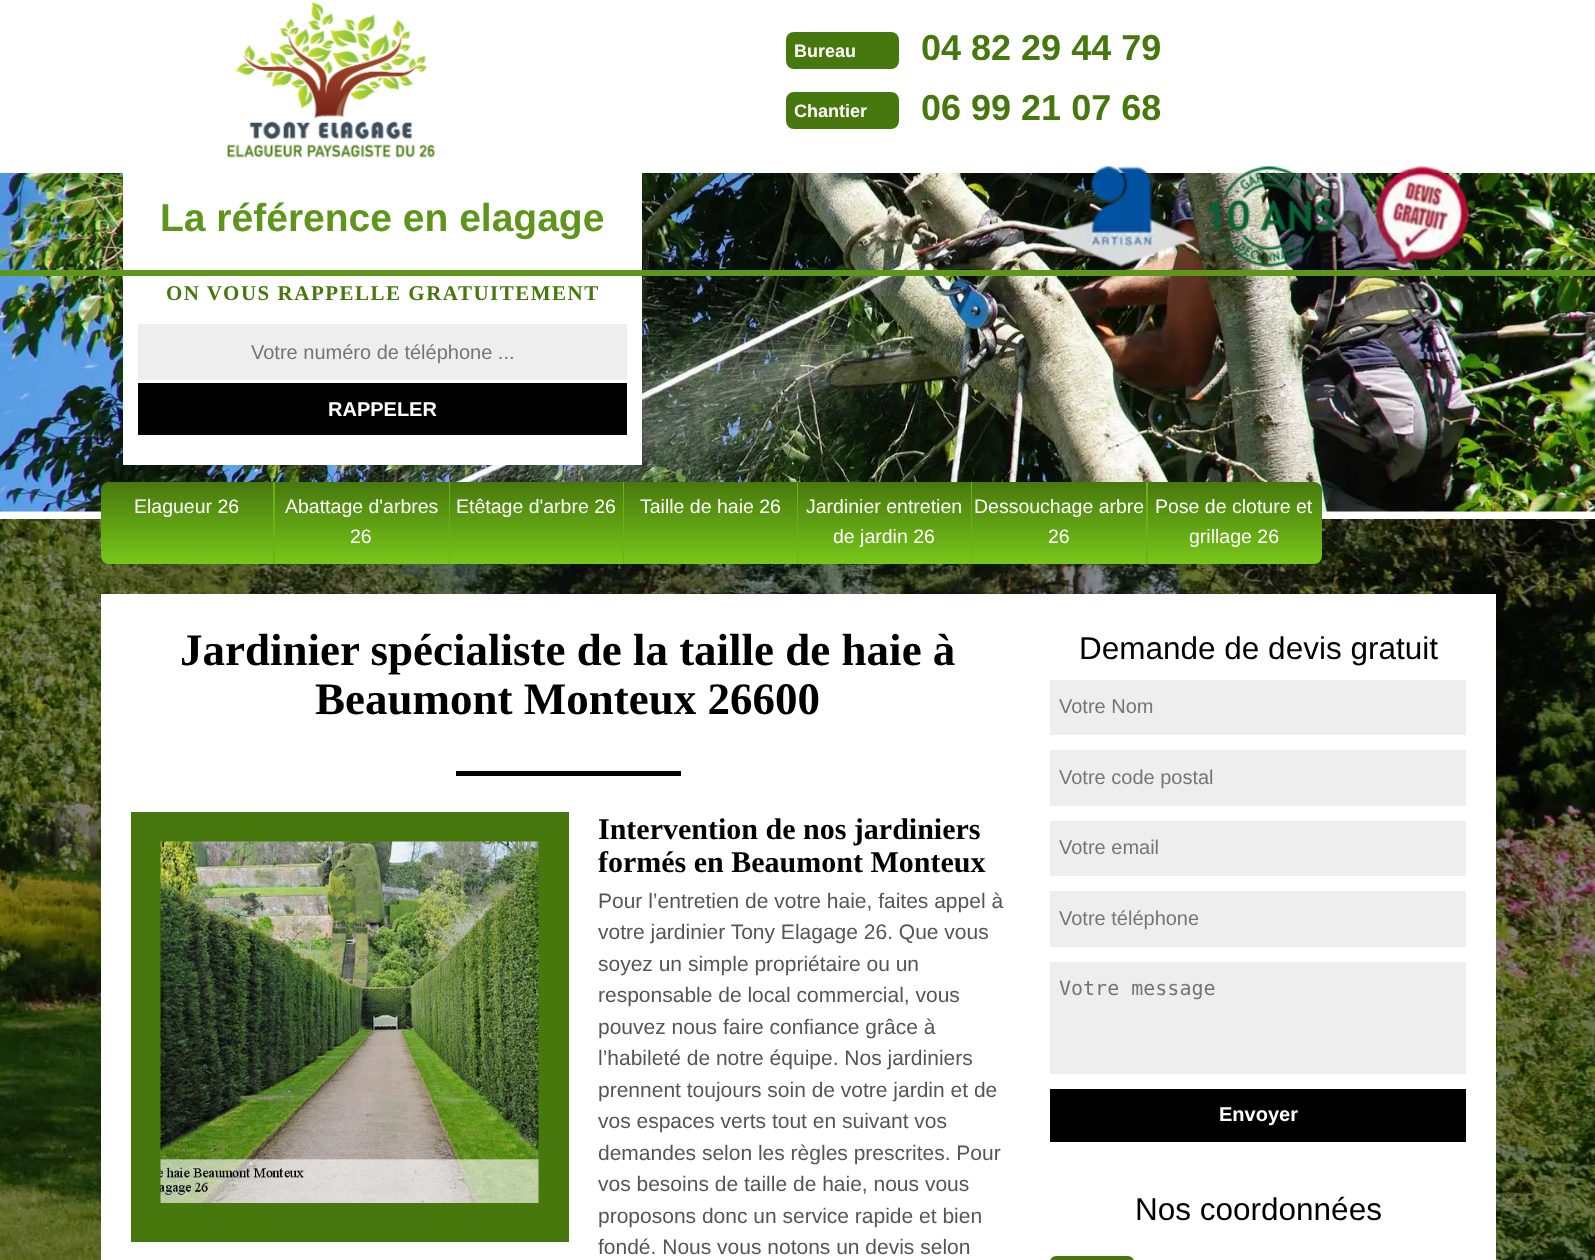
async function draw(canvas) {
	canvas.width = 1595;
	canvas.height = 1260;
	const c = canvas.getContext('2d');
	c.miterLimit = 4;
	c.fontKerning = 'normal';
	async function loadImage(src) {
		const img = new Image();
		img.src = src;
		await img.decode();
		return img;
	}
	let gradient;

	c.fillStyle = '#fff';
	c.fillRect(0, 0, 1595, 1260);
	c.drawImage(await loadImage('img1.png'), 0, 519, 1595, 741);
	c.drawImage(await loadImage('img2.png'), 226, 2, 209, 156);
	c.fillStyle = '#47780d';
	c.beginPath();
	c.roundRect(786, 32, 113, 37, 8);
	c.fill();
	c.font = 'bold 18px Liberation Sans';
	c.fillStyle = '#fff';
	c.fillText('Bureau', 794, 57);
	c.font = 'bold 36px Liberation Sans';
	c.fillStyle = '#47780d';
	c.fillText('04 82 29 44 79', 921, 60);
	c.beginPath();
	c.roundRect(786, 92, 113, 37, 8);
	c.fill();
	c.font = 'bold 18px Liberation Sans';
	c.fillStyle = '#fff';
	c.fillText('Chantier', 794, 117);
	c.font = 'bold 36px Liberation Sans';
	c.fillStyle = '#47780d';
	c.fillText('06 99 21 07 68', 921, 120);
	c.fillStyle = '#eee';
	c.fillRect(0, 511, 1595, 1);
	c.drawImage(await loadImage('img6.png'), 0, 173, 1595, 339);
	c.drawImage(await loadImage('img3.png'), 1045, 166, 151, 102);
	c.drawImage(await loadImage('img4.png'), 1207, 166, 127, 101);
	c.drawImage(await loadImage('img5.png'), 1374, 166, 96, 102);
	c.fillStyle = '#fff';
	c.fillRect(123, 173, 519, 292);
	c.fillStyle = '#5e961b';
	c.fillRect(0, 270, 1595, 6);
	c.font = 'bold 39px Liberation Sans';
	c.fillText('La référence en elagage', 160, 231);
	c.letterSpacing = '1.5px';
	c.font = 'bold 21px Liberation Serif';
	c.fillStyle = '#47780d';
	c.fillText('ON VOUS RAPPELLE GRATUITEMENT', 166, 300);
	c.fillStyle = '#eee';
	c.fillRect(138, 324, 489, 56);
	c.letterSpacing = '0px';
	c.font = '20px Liberation Sans';
	c.fillStyle = '#757575';
	c.fillText('Votre numéro de téléphone ...', 251, 359);
	c.fillStyle = '#000';
	c.fillRect(138, 383, 489, 52);
	c.font = 'bold 20px Liberation Sans';
	c.fillStyle = '#fff';
	c.fillText('RAPPELER', 328, 416);
	gradient = c.createLinearGradient(187, 482, 187, 564);
	gradient.addColorStop(0, '#47780d');
	gradient.addColorStop(1, '#78c71a');
	c.fillStyle = gradient;
	c.beginPath();
	c.roundRect(101, 482, 174, 82, [8, 0, 0, 8]);
	c.fill();
	c.fillStyle = '#6cb118';
	c.fillRect(273, 482, 2, 82);
	c.font = '19.5px Liberation Sans';
	c.fillStyle = '#fff';
	c.fillText('Elagueur 26', 134, 513);
	gradient = c.createLinearGradient(362, 482, 362, 564);
	gradient.addColorStop(0, '#47780d');
	gradient.addColorStop(1, '#78c71a');
	c.fillStyle = gradient;
	c.fillRect(275, 482, 174, 82);
	c.fillStyle = '#6cb118';
	c.fillRect(449, 482, 1, 82);
	c.fillStyle = '#fff';
	c.fillText('Abattage d\'arbres', 285, 513);
	c.fillText('26', 350, 543);
	gradient = c.createLinearGradient(536, 482, 536, 564);
	gradient.addColorStop(0, '#47780d');
	gradient.addColorStop(1, '#78c71a');
	c.fillStyle = gradient;
	c.fillRect(450, 482, 173, 82);
	c.fillStyle = '#6cb118';
	c.fillRect(623, 482, 1, 82);
	c.fillStyle = '#fff';
	c.fillText('Etêtage d\'arbre 26', 456, 513);
	gradient = c.createLinearGradient(710, 482, 710, 564);
	gradient.addColorStop(0, '#47780d');
	gradient.addColorStop(1, '#78c71a');
	c.fillStyle = gradient;
	c.fillRect(624, 482, 173, 82);
	c.fillStyle = '#6cb118';
	c.fillRect(797, 482, 1, 82);
	c.fillStyle = '#fff';
	c.fillText('Taille de haie 26', 640, 513);
	gradient = c.createLinearGradient(884, 482, 884, 564);
	gradient.addColorStop(0, '#47780d');
	gradient.addColorStop(1, '#78c71a');
	c.fillStyle = gradient;
	c.fillRect(798, 482, 173, 82);
	c.fillStyle = '#6cb118';
	c.fillRect(971, 482, 1, 82);
	c.fillStyle = '#fff';
	c.fillText('Jardinier entretien', 806, 513);
	c.fillText('de jardin 26', 833, 543);
	gradient = c.createLinearGradient(1059, 482, 1059, 564);
	gradient.addColorStop(0, '#47780d');
	gradient.addColorStop(1, '#78c71a');
	c.fillStyle = gradient;
	c.fillRect(972, 482, 174, 82);
	c.fillStyle = '#6cb118';
	c.fillRect(1146, 482, 2, 82);
	c.fillStyle = '#fff';
	c.fillText('Dessouchage arbre', 974, 513);
	c.fillText('26', 1048, 543);
	gradient = c.createLinearGradient(1235, 482, 1235, 564);
	gradient.addColorStop(0, '#47780d');
	gradient.addColorStop(1, '#78c71a');
	c.fillStyle = gradient;
	c.beginPath();
	c.roundRect(1148, 482, 174, 82, [0, 8, 8, 0]);
	c.fill();
	c.fillStyle = '#fff';
	c.fillText('Pose de cloture et', 1155, 513);
	c.fillText('grillage 26', 1189, 543);
	c.fillRect(101, 594, 1395, 666);
	c.font = 'bold 45px Liberation Serif';
	c.fillStyle = '#000';
	c.fillText('Jardinier spécialiste de la taille de haie à', 180, 665);
	c.fillText('Beaumont Monteux 26600', 315, 714);
	c.fillRect(456, 771, 225, 5);
	c.fillStyle = '#47780d';
	c.fillRect(131, 812, 438, 430);
	c.drawImage(await loadImage('img7.png'), 160, 841, 379, 362);
	c.font = 'bold 30px Liberation Serif';
	c.fillStyle = '#000';
	c.fillText('Intervention de nos jardiniers', 598, 839);
	c.fillText('formés en Beaumont Monteux', 598, 872);
	c.font = '21px Liberation Sans';
	c.fillStyle = '#555';
	for (const [text, x, y] of [
		['Pour l’entretien de votre haie, faites appel à', 598, 908],
		['votre jardinier Tony Elagage 26. Que vous', 598, 939],
		['soyez un simple propriétaire ou un', 598, 971],
		['responsable de local commercial, vous', 598, 1002],
		['pouvez nous faire confiance grâce à', 598, 1034],
		['l’habileté de notre équipe. Nos jardiniers', 598, 1065],
		['prennent toujours soin de votre jardin et de', 598, 1097],
		['vos espaces verts tout en suivant vos', 598, 1128],
		['demandes selon les règles prescrites. Pour', 598, 1160],
		['vos besoins de taille de haie, nous vous', 598, 1191],
		['proposons donc un service rapide et bien', 598, 1223],
		['fondé. Nous vous notons un devis selon', 598, 1254],
	]) {
		c.fillText(text, x, y);
	}
	c.font = '31.5px Liberation Sans';
	c.fillStyle = '#000';
	c.fillText('Demande de devis gratuit', 1079, 659);
	c.fillStyle = '#eee';
	c.fillRect(1050, 680, 416, 55);
	c.font = '20px Liberation Sans';
	c.fillStyle = '#757575';
	c.fillText('Votre Nom', 1059, 713);
	c.fillStyle = '#eee';
	c.fillRect(1050, 750, 416, 56);
	c.fillStyle = '#757575';
	c.fillText('Votre code postal', 1059, 784);
	c.fillStyle = '#eee';
	c.fillRect(1050, 821, 416, 55);
	c.fillStyle = '#757575';
	c.fillText('Votre email', 1059, 854);
	c.fillStyle = '#eee';
	c.fillRect(1050, 891, 416, 56);
	c.fillStyle = '#757575';
	c.fillText('Votre téléphone', 1059, 925);
	c.fillStyle = '#eee';
	c.fillRect(1050, 962, 416, 112);
	c.font = '20px DejaVu Sans Mono';
	c.fillStyle = '#757575';
	c.fillText('Votre message', 1059, 995);
	c.fillStyle = '#000';
	c.fillRect(1050, 1089, 416, 53);
	c.font = 'bold 20px Liberation Sans';
	c.fillStyle = '#fff';
	c.fillText('Envoyer', 1219, 1121);
	c.font = '31.5px Liberation Sans';
	c.fillStyle = '#000';
	c.fillText('Nos coordonnées', 1135, 1220);
	c.fillStyle = '#47780d';
	c.beginPath();
	c.roundRect(1050, 1256, 84, 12, 8);
	c.fill();
}

draw(document.querySelector('canvas'));
